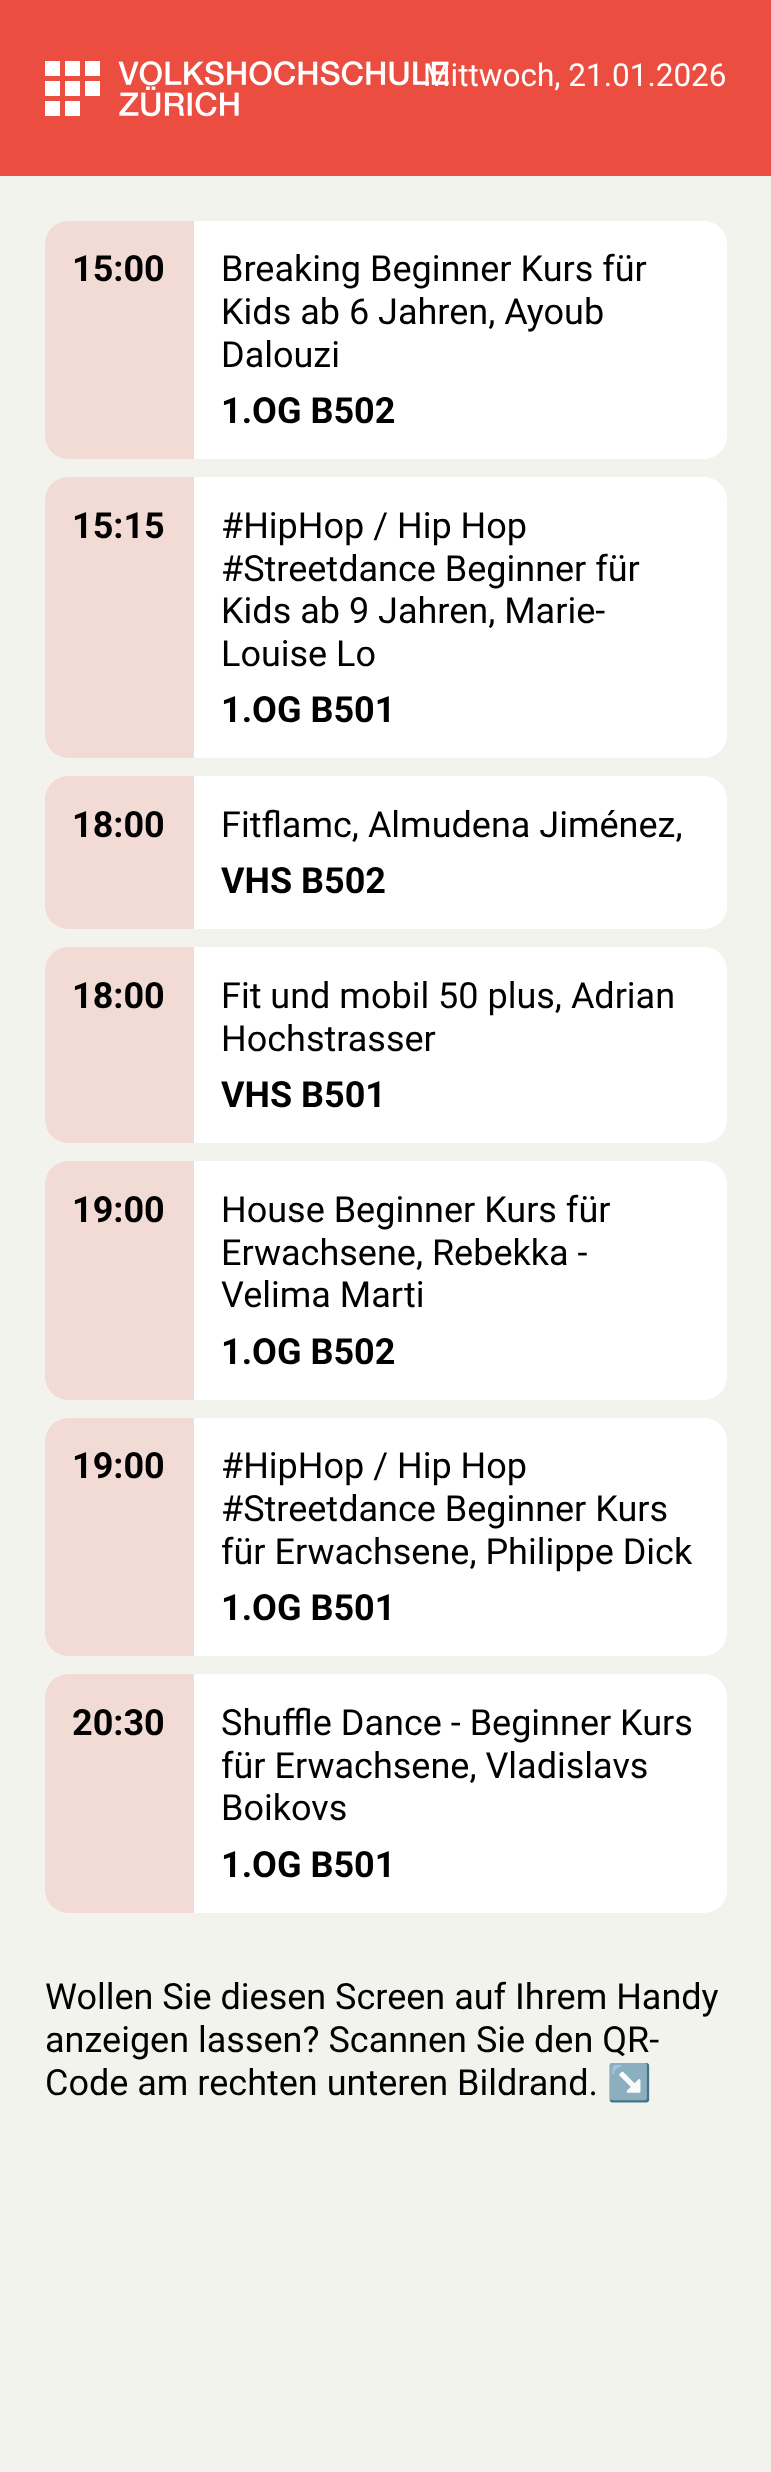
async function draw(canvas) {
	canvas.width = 771;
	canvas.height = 2472;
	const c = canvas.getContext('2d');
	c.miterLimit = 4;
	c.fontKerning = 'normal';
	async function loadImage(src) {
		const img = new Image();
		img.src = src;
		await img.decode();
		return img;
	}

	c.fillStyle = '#f3f3ee';
	c.fillRect(0, 0, 771, 2472);
	c.fillStyle = '#eb4d40';
	c.fillRect(0, 0, 771, 176);
	c.drawImage(await loadImage('img1.png'), 45, 61, 404, 56);
	c.font = '31.5px Roboto';
	c.fillStyle = '#fff';
	c.fillText('Mittwoch, 21.01.2026', 423, 86);
	c.beginPath();
	c.roundRect(45, 221, 682, 238, 23);
	c.fill();
	c.fillStyle = '#f1dbd4';
	c.beginPath();
	c.roundRect(45, 221, 149, 238, [23, 0, 0, 23]);
	c.fill();
	c.font = 'bold 36px Roboto';
	c.fillStyle = '#000';
	c.fillText('15:00', 72, 281);
	c.font = '36px Roboto';
	for (const [text, x, y] of [
		['Breaking Beginner Kurs für', 221, 281],
		['Kids ab 6 Jahren, Ayoub', 221, 324],
		['Dalouzi', 221, 367],
	]) {
		c.fillText(text, x, y);
	}
	c.font = 'bold 36px Roboto';
	c.fillText('1.OG B502', 221, 423);
	c.fillStyle = '#fff';
	c.beginPath();
	c.roundRect(45, 477, 682, 281, 23);
	c.fill();
	c.fillStyle = '#f1dbd4';
	c.beginPath();
	c.roundRect(45, 477, 149, 281, [23, 0, 0, 23]);
	c.fill();
	c.fillStyle = '#000';
	c.fillText('15:15', 72, 538);
	c.font = '36px Roboto';
	for (const [text, x, y] of [
		['#HipHop / Hip Hop', 221, 538],
		['#Streetdance Beginner für', 221, 581],
		['Kids ab 9 Jahren, Marie-', 221, 623],
		['Louise Lo', 221, 666],
	]) {
		c.fillText(text, x, y);
	}
	c.font = 'bold 36px Roboto';
	c.fillText('1.OG B501', 221, 722);
	c.fillStyle = '#fff';
	c.beginPath();
	c.roundRect(45, 776, 682, 153, 23);
	c.fill();
	c.fillStyle = '#f1dbd4';
	c.beginPath();
	c.roundRect(45, 776, 149, 153, [23, 0, 0, 23]);
	c.fill();
	c.fillStyle = '#000';
	c.fillText('18:00', 72, 837);
	c.font = '36px Roboto';
	c.fillText('Fitflamc, Almudena Jiménez,', 221, 837);
	c.font = 'bold 36px Roboto';
	c.fillText('VHS B502', 221, 893);
	c.fillStyle = '#fff';
	c.beginPath();
	c.roundRect(45, 947, 682, 196, 23);
	c.fill();
	c.fillStyle = '#f1dbd4';
	c.beginPath();
	c.roundRect(45, 947, 149, 196, [23, 0, 0, 23]);
	c.fill();
	c.fillStyle = '#000';
	c.fillText('18:00', 72, 1008);
	c.font = '36px Roboto';
	c.fillText('Fit und mobil 50 plus, Adrian', 221, 1008);
	c.fillText('Hochstrasser', 221, 1051);
	c.font = 'bold 36px Roboto';
	c.fillText('VHS B501', 221, 1107);
	c.fillStyle = '#fff';
	c.beginPath();
	c.roundRect(45, 1161, 682, 239, 23);
	c.fill();
	c.fillStyle = '#f1dbd4';
	c.beginPath();
	c.roundRect(45, 1161, 149, 239, [23, 0, 0, 23]);
	c.fill();
	c.fillStyle = '#000';
	c.fillText('19:00', 72, 1222);
	c.font = '36px Roboto';
	for (const [text, x, y] of [
		['House Beginner Kurs für', 221, 1222],
		['Erwachsene, Rebekka -', 221, 1265],
		['Velima Marti', 221, 1307],
	]) {
		c.fillText(text, x, y);
	}
	c.font = 'bold 36px Roboto';
	c.fillText('1.OG B502', 221, 1364);
	c.fillStyle = '#fff';
	c.beginPath();
	c.roundRect(45, 1418, 682, 238, 23);
	c.fill();
	c.fillStyle = '#f1dbd4';
	c.beginPath();
	c.roundRect(45, 1418, 149, 238, [23, 0, 0, 23]);
	c.fill();
	c.fillStyle = '#000';
	c.fillText('19:00', 72, 1478);
	c.font = '36px Roboto';
	for (const [text, x, y] of [
		['#HipHop / Hip Hop', 221, 1478],
		['#Streetdance Beginner Kurs', 221, 1521],
		['für Erwachsene, Philippe Dick', 221, 1564],
	]) {
		c.fillText(text, x, y);
	}
	c.font = 'bold 36px Roboto';
	c.fillText('1.OG B501', 221, 1620);
	c.fillStyle = '#fff';
	c.beginPath();
	c.roundRect(45, 1674, 682, 239, 23);
	c.fill();
	c.fillStyle = '#f1dbd4';
	c.beginPath();
	c.roundRect(45, 1674, 149, 239, [23, 0, 0, 23]);
	c.fill();
	c.fillStyle = '#000';
	c.fillText('20:30', 72, 1735);
	c.font = '36px Roboto';
	for (const [text, x, y] of [
		['Shuffle Dance - Beginner Kurs', 221, 1735],
		['für Erwachsene, Vladislavs', 221, 1778],
		['Boikovs', 221, 1820],
	]) {
		c.fillText(text, x, y);
	}
	c.font = 'bold 36px Roboto';
	c.fillText('1.OG B501', 221, 1877);
	c.font = '36px Roboto';
	for (const [text, x, y] of [
		['Wollen Sie diesen Screen auf Ihrem Handy', 45, 2009],
		['anzeigen lassen? Scannen Sie den QR-', 45, 2052],
		['Code am rechten unteren Bildrand.', 45, 2095],
	]) {
		c.fillText(text, x, y);
	}
	c.font = '36px Noto Color Emoji';
	c.fillText('↘️', 607, 2095);
}

draw(document.querySelector('canvas'));
